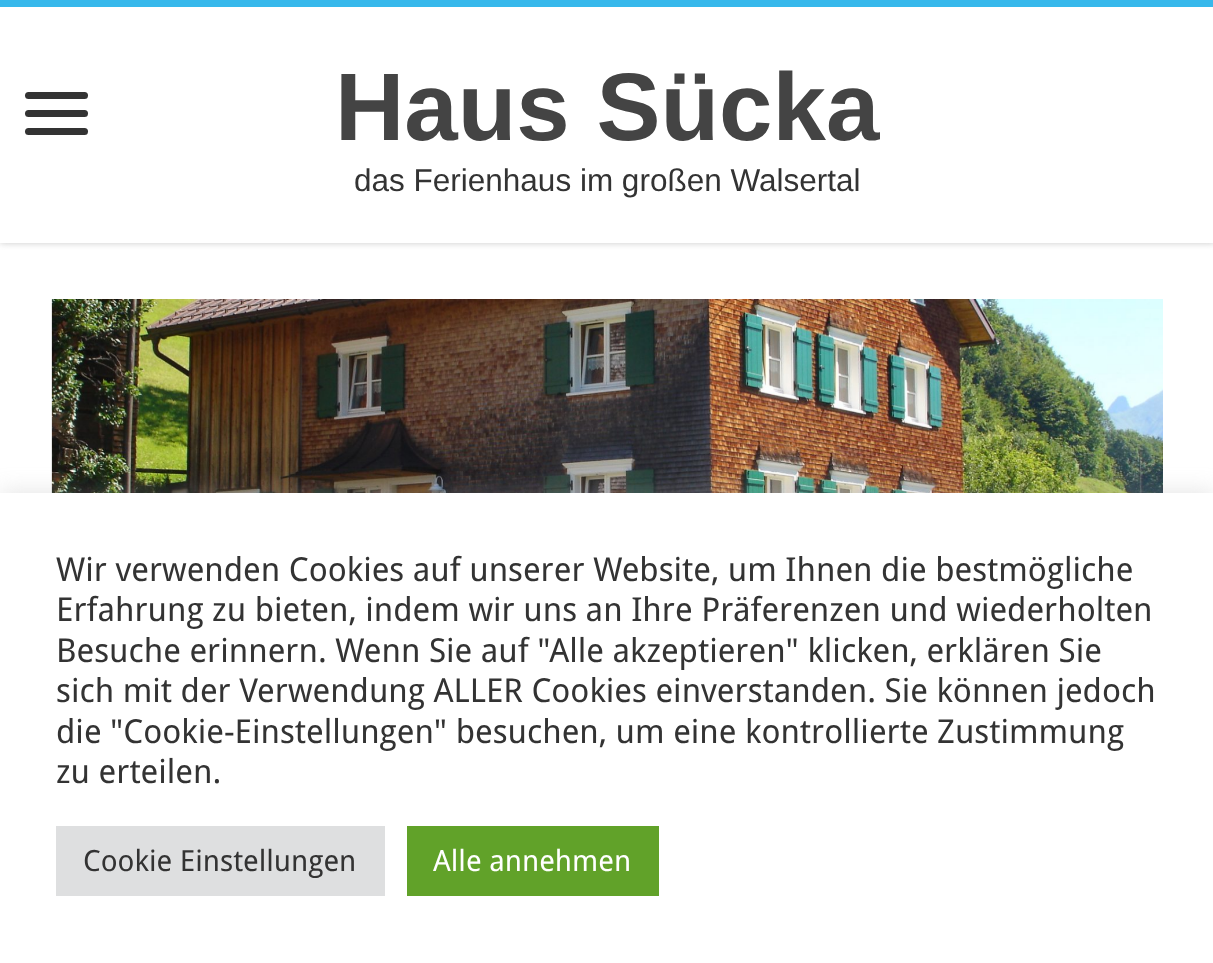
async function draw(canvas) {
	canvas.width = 1213;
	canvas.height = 963;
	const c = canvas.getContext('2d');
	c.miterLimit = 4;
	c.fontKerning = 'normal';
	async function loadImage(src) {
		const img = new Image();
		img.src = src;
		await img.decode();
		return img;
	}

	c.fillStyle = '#fff';
	c.fillRect(0, 0, 1213, 963);
	c.save();
	c.beginPath();
	c.rect(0, 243, 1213, 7);
	c.clip();
	c.fillStyle = '#cacaca';
	c.filter = 'blur(3.5px)';
	c.beginPath();
	c.rect(0, 0, 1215, 243);
	c.fill();
	c.filter = 'none';
	c.restore();
	c.fillStyle = '#37b8eb';
	c.fillRect(0, 0, 1213, 7);
	c.fillStyle = '#333';
	c.beginPath();
	c.roundRect(25, 92, 63, 7, 3.5);
	c.fill();
	c.beginPath();
	c.roundRect(25, 110, 63, 7, 3.5);
	c.fill();
	c.beginPath();
	c.roundRect(25, 128, 63, 7, 3.5);
	c.fill();
	c.font = 'bold 96px Liberation Sans';
	c.fillStyle = '#444';
	c.fillText('Haus Sücka', 335, 140);
	c.font = '31.5px Liberation Sans';
	c.fillStyle = '#333';
	c.fillText('das Ferienhaus im großen Walsertal', 354, 191);
	c.drawImage(await loadImage('img1.png'), 51, 299, 1112, 194);
	c.fillStyle = '#acabab4d';
	c.filter = 'blur(11px)';
	c.beginPath();
	c.rect(0, 491, 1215, 470);
	c.fill();
	c.filter = 'none';
	c.fillStyle = '#fff';
	c.fillRect(0, 493, 1213, 470);
	c.font = '33px Droid Sans';
	c.fillStyle = '#333';
	for (const [text, x, y] of [
		['Wir verwenden Cookies auf unserer Website, um Ihnen die bestmögliche', 56, 581],
		['Erfahrung zu bieten, indem wir uns an Ihre Präferenzen und wiederholten', 56, 621],
		['Besuche erinnern. Wenn Sie auf "Alle akzeptieren" klicken, erklären Sie', 56, 662],
		['sich mit der Verwendung ALLER Cookies einverstanden. Sie können jedoch', 56, 702],
		['die "Cookie-Einstellungen" besuchen, um eine kontrollierte Zustimmung', 56, 743],
		['zu erteilen.', 56, 783],
	]) {
		c.fillText(text, x, y);
	}
	c.fillStyle = '#dedfe0';
	c.fillRect(56, 826, 329, 70);
	c.font = '29.25px Droid Sans';
	c.fillStyle = '#333';
	c.fillText('Cookie Einstellungen', 83, 871);
	c.fillStyle = '#61a229';
	c.fillRect(407, 826, 252, 70);
	c.fillStyle = '#fff';
	c.fillText('Alle annehmen', 433, 871);
}

draw(document.querySelector('canvas'));
